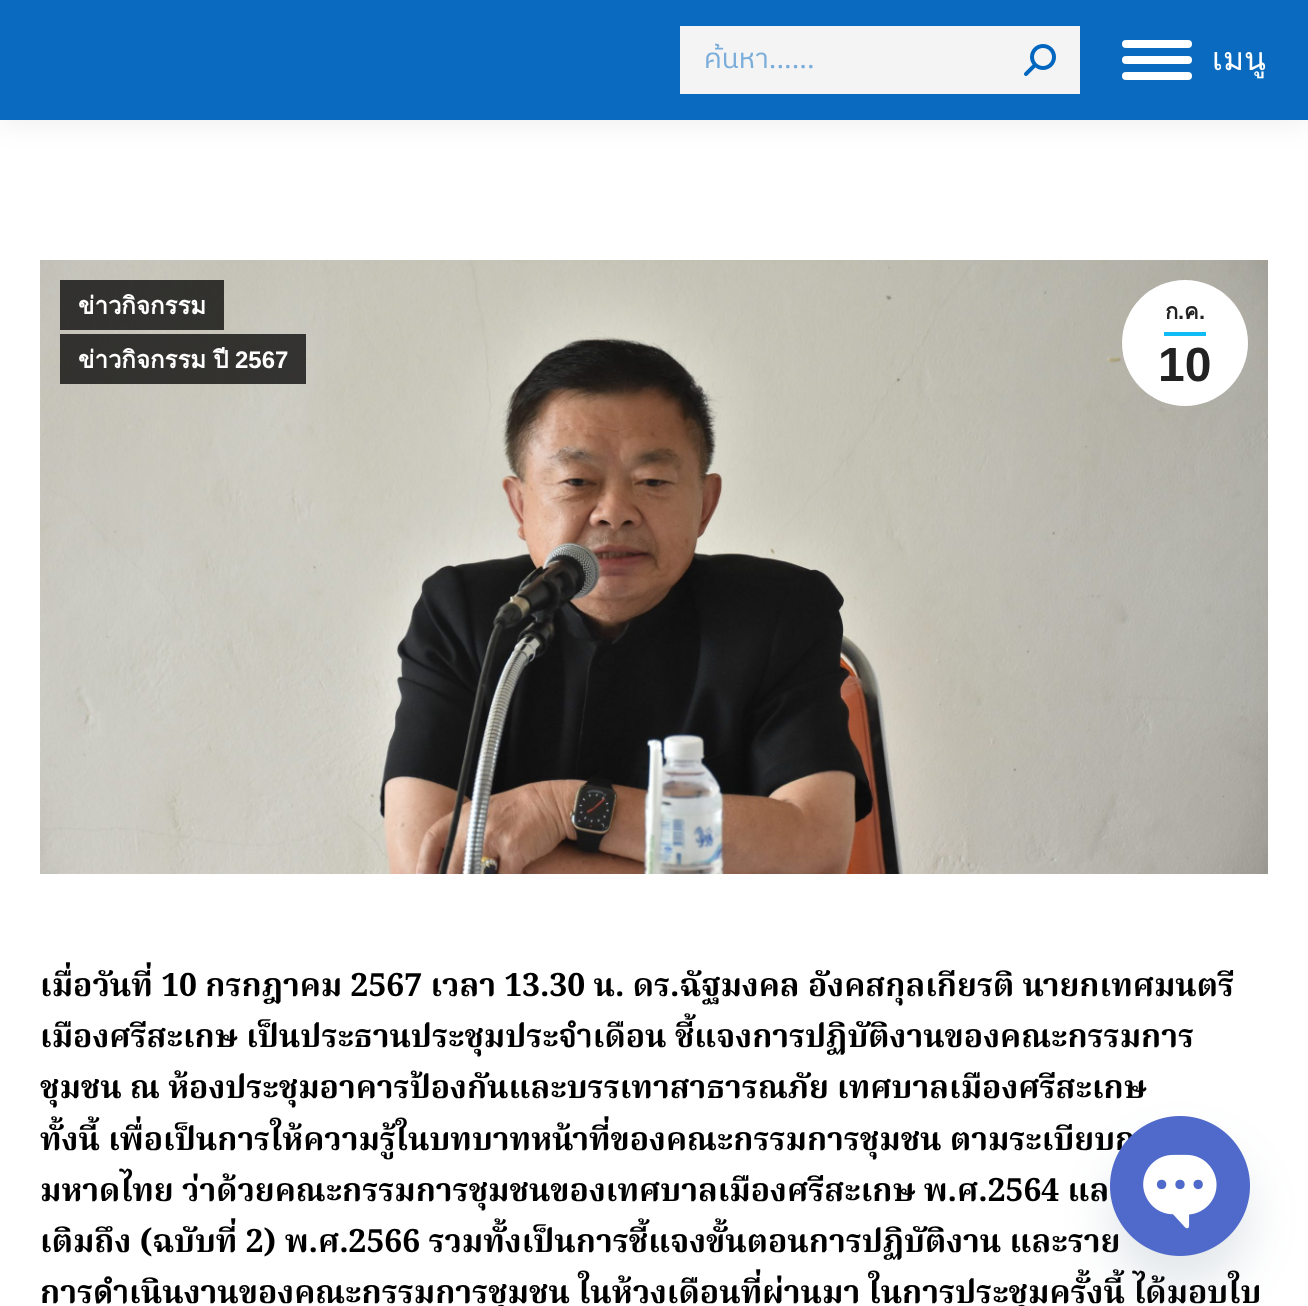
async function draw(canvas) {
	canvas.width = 1308;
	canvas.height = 1306;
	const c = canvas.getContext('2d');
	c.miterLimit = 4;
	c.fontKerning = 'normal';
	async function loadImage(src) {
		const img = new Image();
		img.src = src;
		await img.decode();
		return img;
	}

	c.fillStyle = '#fff';
	c.fillRect(0, 0, 1308, 1306);
	c.fillStyle = '#00000012';
	c.filter = 'blur(15px)';
	c.beginPath();
	c.rect(-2, -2, 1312, 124);
	c.fill();
	c.filter = 'none';
	c.fillStyle = '#096abf';
	c.fillRect(0, 0, 1308, 120);
	c.fillStyle = '#f4f4f4';
	c.fillRect(680, 26, 400, 68);
	c.save();
	c.beginPath();
	c.rect(704, 36, 352, 46);
	c.clip();
	c.font = '28px IBM Plex Sans Thai';
	c.fillStyle = '#7aadda';
	c.fillText('ค้นหา......', 704, 68);
	c.restore();
	c.drawImage(await loadImage('img1.png'), 1024, 44, 32, 32);
	c.fillStyle = '#fff';
	c.beginPath();
	c.roundRect(1122, 40, 70, 8, 4);
	c.fill();
	c.beginPath();
	c.roundRect(1122, 56, 70, 8, 4);
	c.fill();
	c.beginPath();
	c.roundRect(1122, 72, 70, 8, 4);
	c.fill();
	c.font = '32px Loma';
	c.fillText('เมนู', 1212, 70);
	c.drawImage(await loadImage('img2.png'), 40, 260, 1228, 614);
	c.fillStyle = '#000000bf';
	c.fillRect(60, 280, 164, 50);
	c.font = 'bold 24px Loma';
	c.fillStyle = '#fff';
	c.fillText('ข่าวกิจกรรม', 78, 314);
	c.fillStyle = '#000000bf';
	c.fillRect(60, 334, 246, 50);
	c.wordSpacing = '-1px';
	c.fillStyle = '#fff';
	c.fillText('ข่าวกิจกรรม ปี', 78, 368);
	c.wordSpacing = '0px';
	c.font = 'bold 24px Liberation Sans';
	c.fillText('2567', 235, 368);
	c.beginPath();
	c.arc(1185, 343, 63, 0, 2 * Math.PI);
	c.fill();
	c.font = 'bold 22px Loma';
	c.fillStyle = '#222';
	c.fillText('ก', 1165, 319);
	c.font = 'bold 22px Liberation Sans';
	c.fillText('.', 1178, 319);
	c.font = 'bold 22px Loma';
	c.fillText('ค', 1184, 319);
	c.font = 'bold 22px Liberation Sans';
	c.fillText('.', 1199, 319);
	c.fillStyle = '#0fbcf5';
	c.fillRect(1164, 332, 42, 4);
	c.font = 'bold 48px Liberation Sans';
	c.fillStyle = '#222';
	c.fillText('10', 1158, 381);
	c.font = 'bold 32px Noto Serif Thai';
	c.fillStyle = '#000';
	for (const [text, x, y] of [
		['เมื่อวันที่ 10 กรกฎาคม 2567 เวลา 13.30 น. ดร.ฉัฐมงคล อังคสกุลเกียรติ นายกเทศมนตรี', 40, 996],
		['เมืองศรีสะเกษ เป็นประธานประชุมประจำเดือน ชี้แจงการปฏิบัติงานของคณะกรรมการ', 40, 1047],
		['ชุมชน ณ ห้องประชุมอาคารป้องกันและบรรเทาสาธารณภัย เทศบาลเมืองศรีสะเกษ', 40, 1098],
		['ทั้งนี้ เพื่อเป็นการให้ความรู้ในบทบาทหน้าที่ของคณะกรรมการชุมชน ตามระเบียบก', 40, 1150],
		['มหาดไทย ว่าด้วยคณะกรรมการชุมชนของเทศบาลเมืองศรีสะเกษ พ.ศ.2564 แล', 40, 1201],
		['เติมถึง (ฉบับที่ 2) พ.ศ.2566 รวมทั้งเป็นการชี้แจงขั้นตอนการปฏิบัติงาน และราย', 40, 1252],
		['การดำเนินงานของคณะกรรมการชุมชน ในห้วงเดือนที่ผ่านมา ในการประชุมครั้งนี้ ได้มอบใบ', 40, 1303],
	]) {
		c.fillText(text, x, y);
	}
	c.fillStyle = '#49687e29';
	c.filter = 'blur(24px)';
	c.beginPath();
	c.roundRect(1110, 1148, 140, 140, 70);
	c.fill();
	c.filter = 'none';
	c.drawImage(await loadImage('img3.png'), 1110, 1116, 140, 140);
}

draw(document.querySelector('canvas'));
